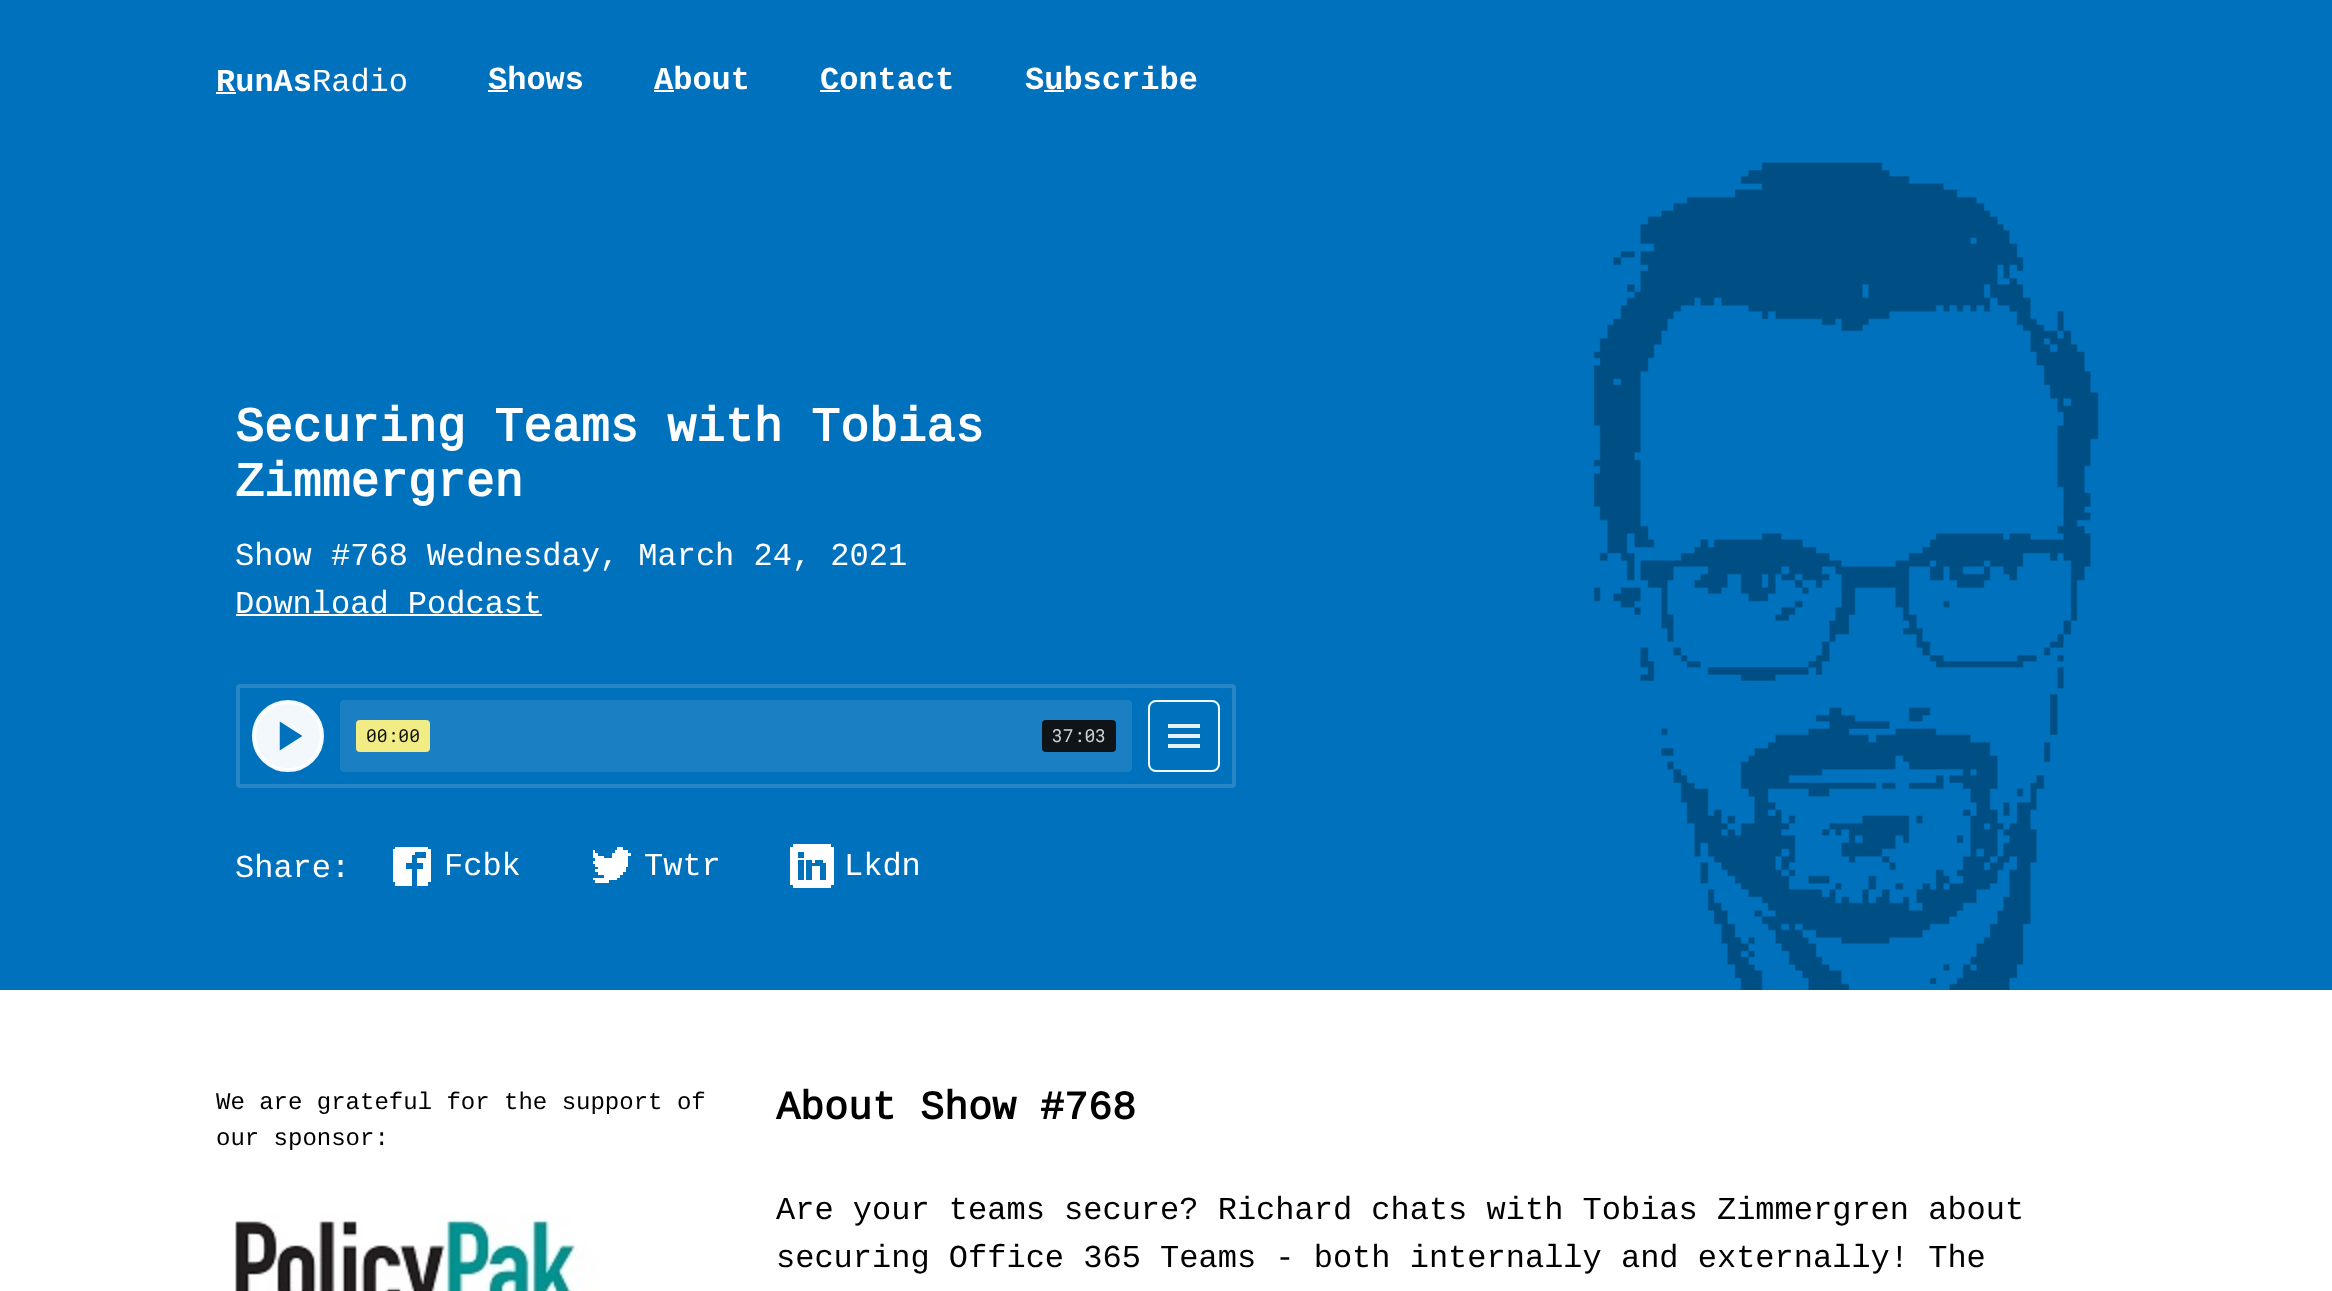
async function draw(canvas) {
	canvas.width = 2332;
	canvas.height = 1291;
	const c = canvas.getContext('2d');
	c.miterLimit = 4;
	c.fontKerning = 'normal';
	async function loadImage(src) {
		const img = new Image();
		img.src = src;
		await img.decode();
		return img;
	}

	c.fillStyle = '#fff';
	c.fillRect(0, 0, 2332, 1291);
	c.fillStyle = '#0071bd';
	c.fillRect(0, 0, 2332, 990);
	c.font = 'bold 32px "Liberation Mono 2"';
	c.fillStyle = '#fff';
	c.fillText('RunAs', 216, 91);
	c.fillRect(216, 92, 20, 2);
	c.font = '32px Liberation Mono';
	c.fillText('Radio', 312, 91);
	c.font = 'bold 32px "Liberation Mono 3"';
	c.fillText('Shows', 488, 89);
	c.fillRect(488, 90, 20, 2);
	c.fillText('About', 654, 89);
	c.fillRect(654, 90, 20, 2);
	c.fillText('Contact', 820, 89);
	c.fillRect(820, 90, 20, 2);
	c.fillText('Subscribe', 1025, 89);
	c.fillRect(1044, 90, 20, 2);
	c.font = 'bold 48px Liberation Mono';
	c.fillText('Securing Teams with Tobias', 235, 441);
	c.fillText('Zimmergren', 235, 496);
	c.font = '32px Liberation Mono';
	c.fillText('Show #768 Wednesday, March 24, 2021', 235, 565);
	c.fillText('Download Podcast', 235, 613);
	c.fillRect(236, 614, 306, 2);
	c.drawImage(await loadImage('img1.png'), 236, 684, 1000, 104);
	c.fillText('Share:', 235, 877);
	c.drawImage(await loadImage('img2.png'), 393, 847, 38, 39);
	c.fillText('Fcbk', 444, 875);
	c.drawImage(await loadImage('img3.png'), 593, 847, 38, 36);
	c.fillText('Twtr', 644, 875);
	c.drawImage(await loadImage('img4.png'), 790, 844, 44, 44);
	c.fillText('Lkdn', 844, 875);
	c.drawImage(await loadImage('img5.png'), 1593, 162, 506, 828);
	c.font = '24px Liberation Mono';
	c.fillStyle = '#000';
	c.fillText('We are grateful for the support of', 216, 1109);
	c.fillText('our sponsor:', 216, 1145);
	c.drawImage(await loadImage('img6.png'), 235, 1214, 365, 77);
	c.font = 'bold 40px Liberation Mono';
	c.fillText('About Show #768', 776, 1119);
	c.font = '32px Liberation Mono';
	c.fillText('Are your teams secure? Richard chats with Tobias Zimmergren about', 776, 1219);
	c.fillText('securing Office 365 Teams - both internally and externally! The', 776, 1267);
}

draw(document.querySelector('canvas'));
